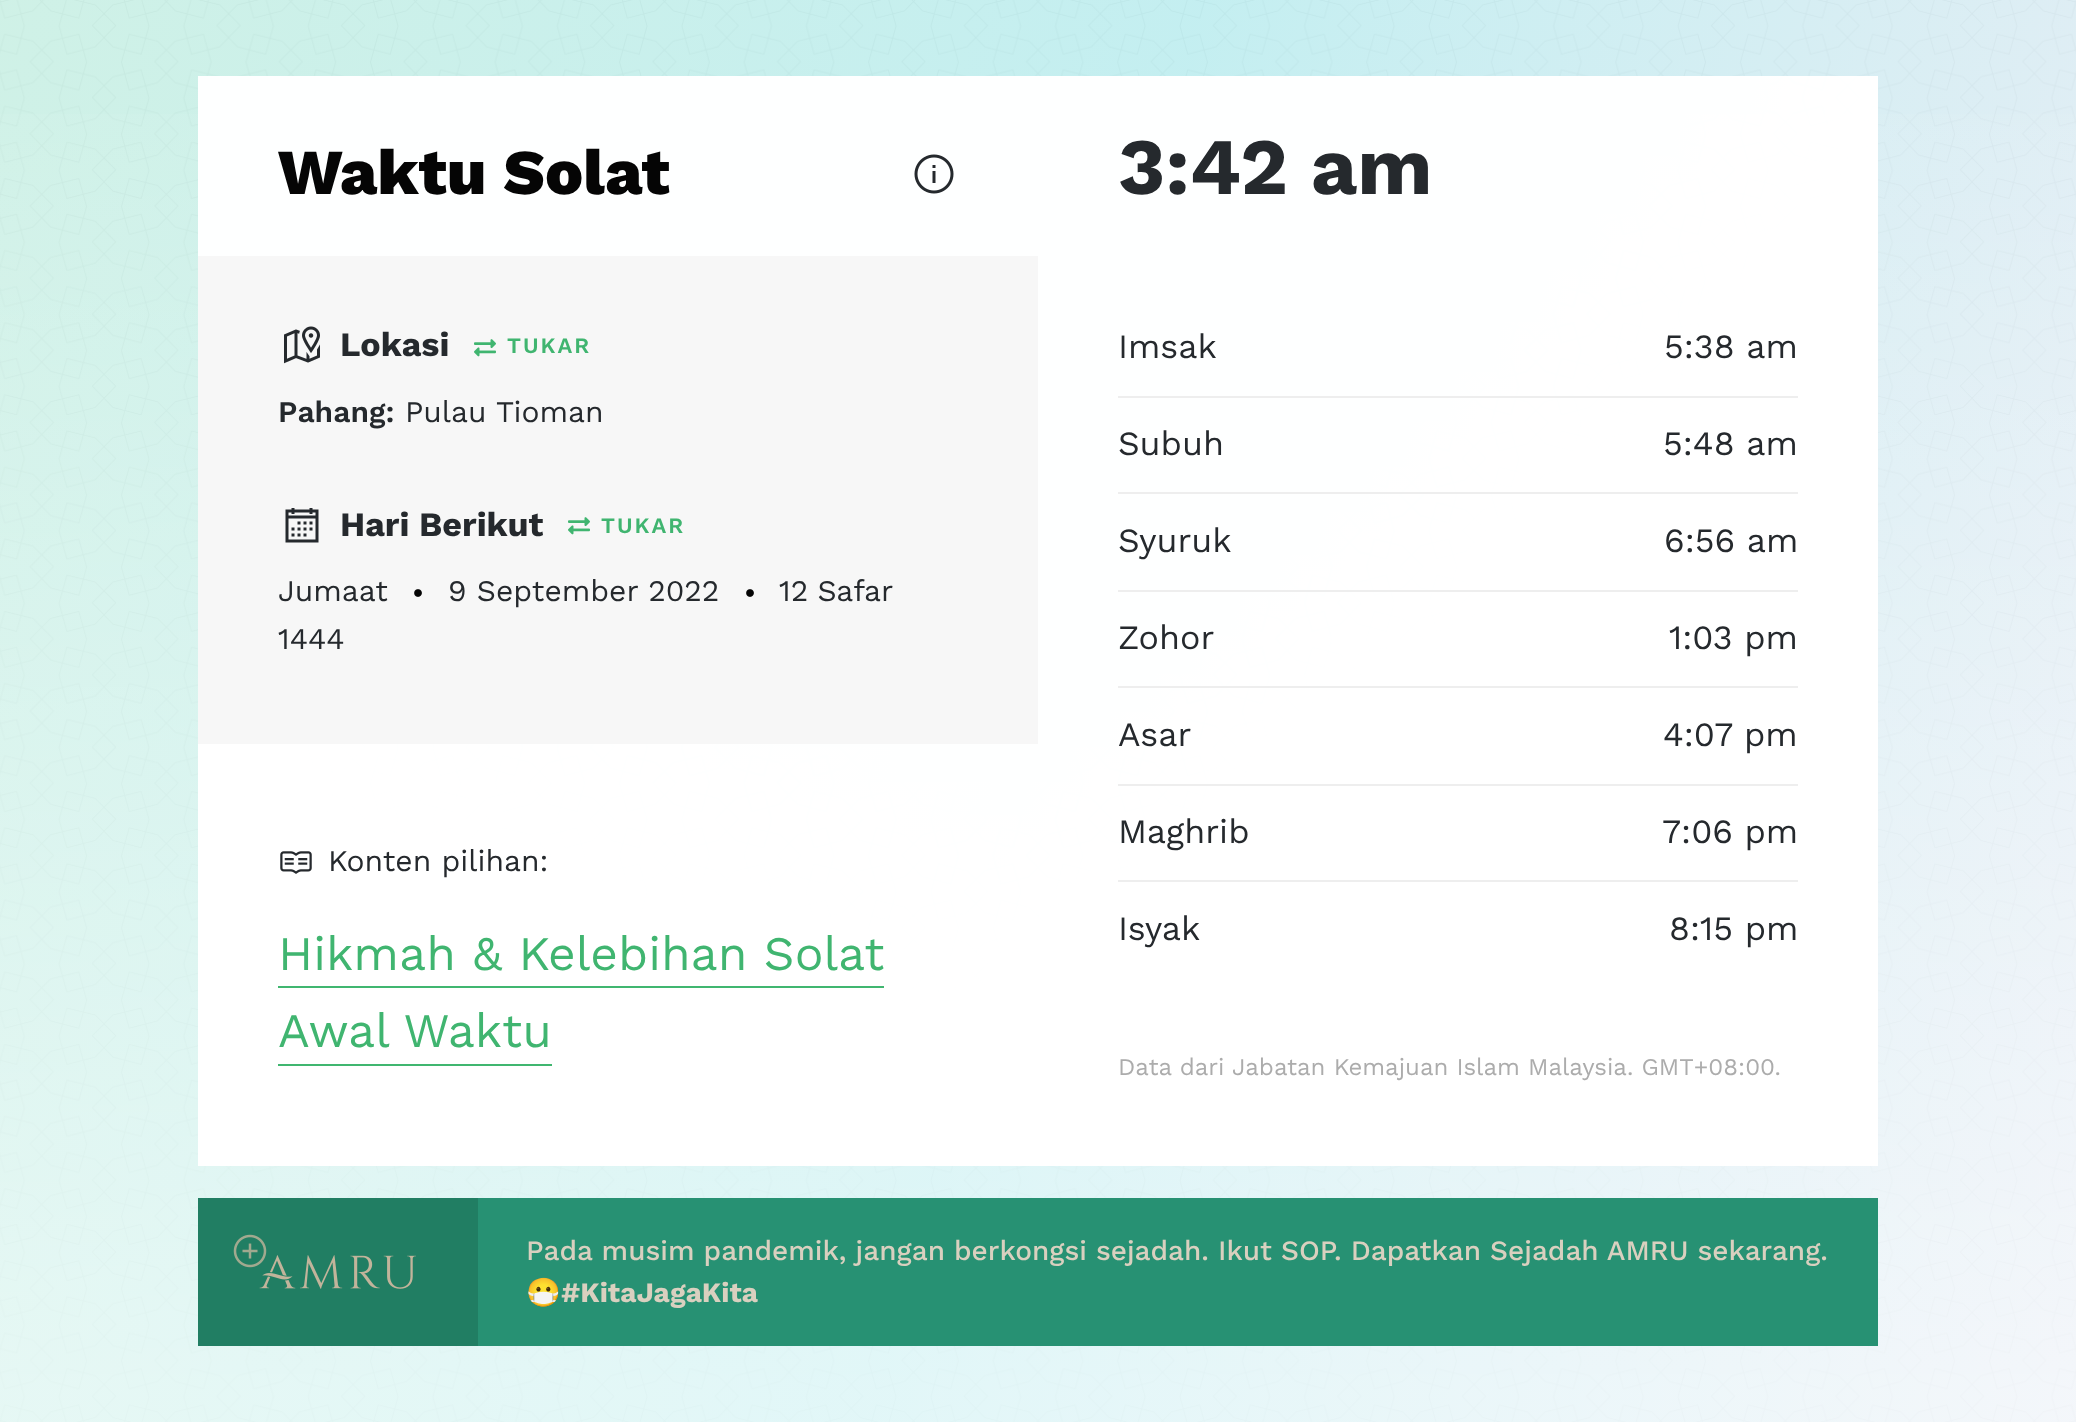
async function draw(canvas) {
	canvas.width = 2076;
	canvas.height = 1422;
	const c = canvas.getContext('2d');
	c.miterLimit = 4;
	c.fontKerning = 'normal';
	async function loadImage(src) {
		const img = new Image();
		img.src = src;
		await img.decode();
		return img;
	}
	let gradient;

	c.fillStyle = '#f5f0ec';
	c.fillRect(0, 0, 2076, 1422);
	c.drawImage(await loadImage('img1.png'), 0, 0, 2076, 1422);
	gradient = c.createLinearGradient(-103, 448, 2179, 974);
	gradient.addColorStop(0, '#aaf2e180');
	gradient.addColorStop(0.5, '#93edf580');
	gradient.addColorStop(1, '#dbebff80');
	c.fillStyle = gradient;
	c.fillRect(0, 0, 2076, 1422);
	gradient = c.createLinearGradient(1038, 1422, 1038, 0);
	gradient.addColorStop(0.03, '#ffffff80');
	gradient.addColorStop(1, '#ffffff00');
	c.fillStyle = gradient;
	c.fillRect(0, 114, 2076, 1308);
	c.fillStyle = '#fffffffa';
	c.fillRect(198, 76, 840, 1090);
	c.font = '800 64px Work Sans';
	c.fillStyle = '#050505';
	c.fillText('Waktu Solat', 278, 194);
	c.drawImage(await loadImage('img2.png'), 914, 154, 40, 40);
	c.fillStyle = '#f7f7f7fa';
	c.fillRect(198, 256, 840, 488);
	c.drawImage(await loadImage('img3.png'), 284, 326, 36, 38);
	c.font = 'bold 34px Work Sans';
	c.fillStyle = '#25292d';
	c.fillText('Lokasi', 340, 356);
	c.drawImage(await loadImage('img4.png'), 474, 339, 22, 18);
	c.letterSpacing = '2px';
	c.font = '600 22px Work Sans';
	c.fillStyle = '#40b570';
	c.fillText('TUKAR', 507, 353);
	c.letterSpacing = '0px';
	c.font = '600 30px Work Sans';
	c.fillStyle = '#25292d';
	c.fillText('Pahang:', 278, 422);
	c.font = '30px Work Sans';
	c.fillText('Pulau Tioman', 405, 422);
	c.drawImage(await loadImage('img5.png'), 285, 508, 34, 35);
	c.font = 'bold 34px Work Sans';
	c.fillText('Hari Berikut', 340, 536);
	c.drawImage(await loadImage('img4.png'), 568, 517, 22, 18);
	c.letterSpacing = '2px';
	c.font = '600 22px Work Sans';
	c.fillStyle = '#40b570';
	c.fillText('TUKAR', 601, 533);
	c.letterSpacing = '0px';
	c.font = '30px Work Sans';
	c.fillStyle = '#25292d';
	c.fillText('Jumaat', 278, 601);
	c.drawImage(await loadImage('img6.png'), 414, 589, 8, 8);
	c.fillText('9 September 2022', 448, 601);
	c.drawImage(await loadImage('img6.png'), 746, 589, 8, 8);
	c.wordSpacing = '-1px';
	c.fillText('12 Safar', 779, 601);
	c.wordSpacing = '0px';
	c.fillText('1444', 278, 649);
	c.drawImage(await loadImage('img7.png'), 280, 851, 32, 23);
	c.fillText('Konten pilihan:', 328, 871);
	c.font = '48px Work Sans';
	c.fillStyle = '#40b570';
	c.fillText('Hikmah & Kelebihan Solat', 278, 970);
	c.fillStyle = '#40b670';
	c.fillRect(278, 986, 606, 2);
	c.fillStyle = '#40b570';
	c.fillText('Awal Waktu', 278, 1047);
	c.fillStyle = '#40b670';
	c.fillRect(278, 1064, 274, 2);
	c.fillStyle = '#fffffffa';
	c.fillRect(1038, 76, 840, 1090);
	c.font = 'bold 80px Work Sans';
	c.fillStyle = '#25292d';
	c.fillText('3:42 am', 1118, 194);
	c.fillStyle = '#eee';
	c.fillRect(1118, 396, 680, 2);
	c.font = '34px Work Sans';
	c.fillStyle = '#25292d';
	c.fillText('Imsak', 1118, 358);
	c.fillText('5:38 am', 1664, 358);
	c.fillStyle = '#eee';
	c.fillRect(1118, 492, 680, 2);
	c.fillStyle = '#25292d';
	c.fillText('Subuh', 1118, 455);
	c.fillText('5:48 am', 1663, 455);
	c.fillStyle = '#eee';
	c.fillRect(1118, 590, 680, 2);
	c.fillStyle = '#25292d';
	c.fillText('Syuruk', 1118, 552);
	c.fillText('6:56 am', 1664, 552);
	c.fillStyle = '#eee';
	c.fillRect(1118, 686, 680, 2);
	c.fillStyle = '#25292d';
	c.fillText('Zohor', 1118, 649);
	c.fillText('1:03 pm', 1669, 649);
	c.fillStyle = '#eee';
	c.fillRect(1118, 784, 680, 2);
	c.fillStyle = '#25292d';
	c.fillText('Asar', 1118, 746);
	c.fillText('4:07 pm', 1663, 746);
	c.fillStyle = '#eee';
	c.fillRect(1118, 880, 680, 2);
	c.fillStyle = '#25292d';
	for (const [text, x, y] of [
		['Maghrib', 1118, 843],
		['7:06 pm', 1662, 843],
		['Isyak', 1118, 940],
		['8:15 pm', 1669, 940],
	]) {
		c.fillText(text, x, y);
	}
	c.font = '24px Work Sans';
	c.fillStyle = '#acacac';
	c.fillText('Data dari Jabatan Kemajuan Islam Malaysia. GMT+08:00.', 1118, 1075);
	c.fillStyle = '#279173';
	c.fillRect(478, 1198, 1400, 148);
	c.fillStyle = '#217e63';
	c.fillRect(198, 1198, 280, 148);
	c.drawImage(await loadImage('img9.png'), 259, 1255, 157, 34);
	c.drawImage(await loadImage('img8.png'), 233, 1234, 34, 34);
	c.font = '500 28px Work Sans';
	c.fillStyle = '#d9d0bf';
	c.fillText('Pada musim pandemik, jangan berkongsi sejadah. Ikut SOP. Dapatkan Sejadah AMRU sekarang.', 526, 1260);
	c.font = '28px Noto Color Emoji';
	c.fillText('😷', 526, 1302);
	c.font = 'bold 28px Work Sans';
	c.fillText('#KitaJagaKita', 561, 1302);
}

draw(document.querySelector('canvas'));
